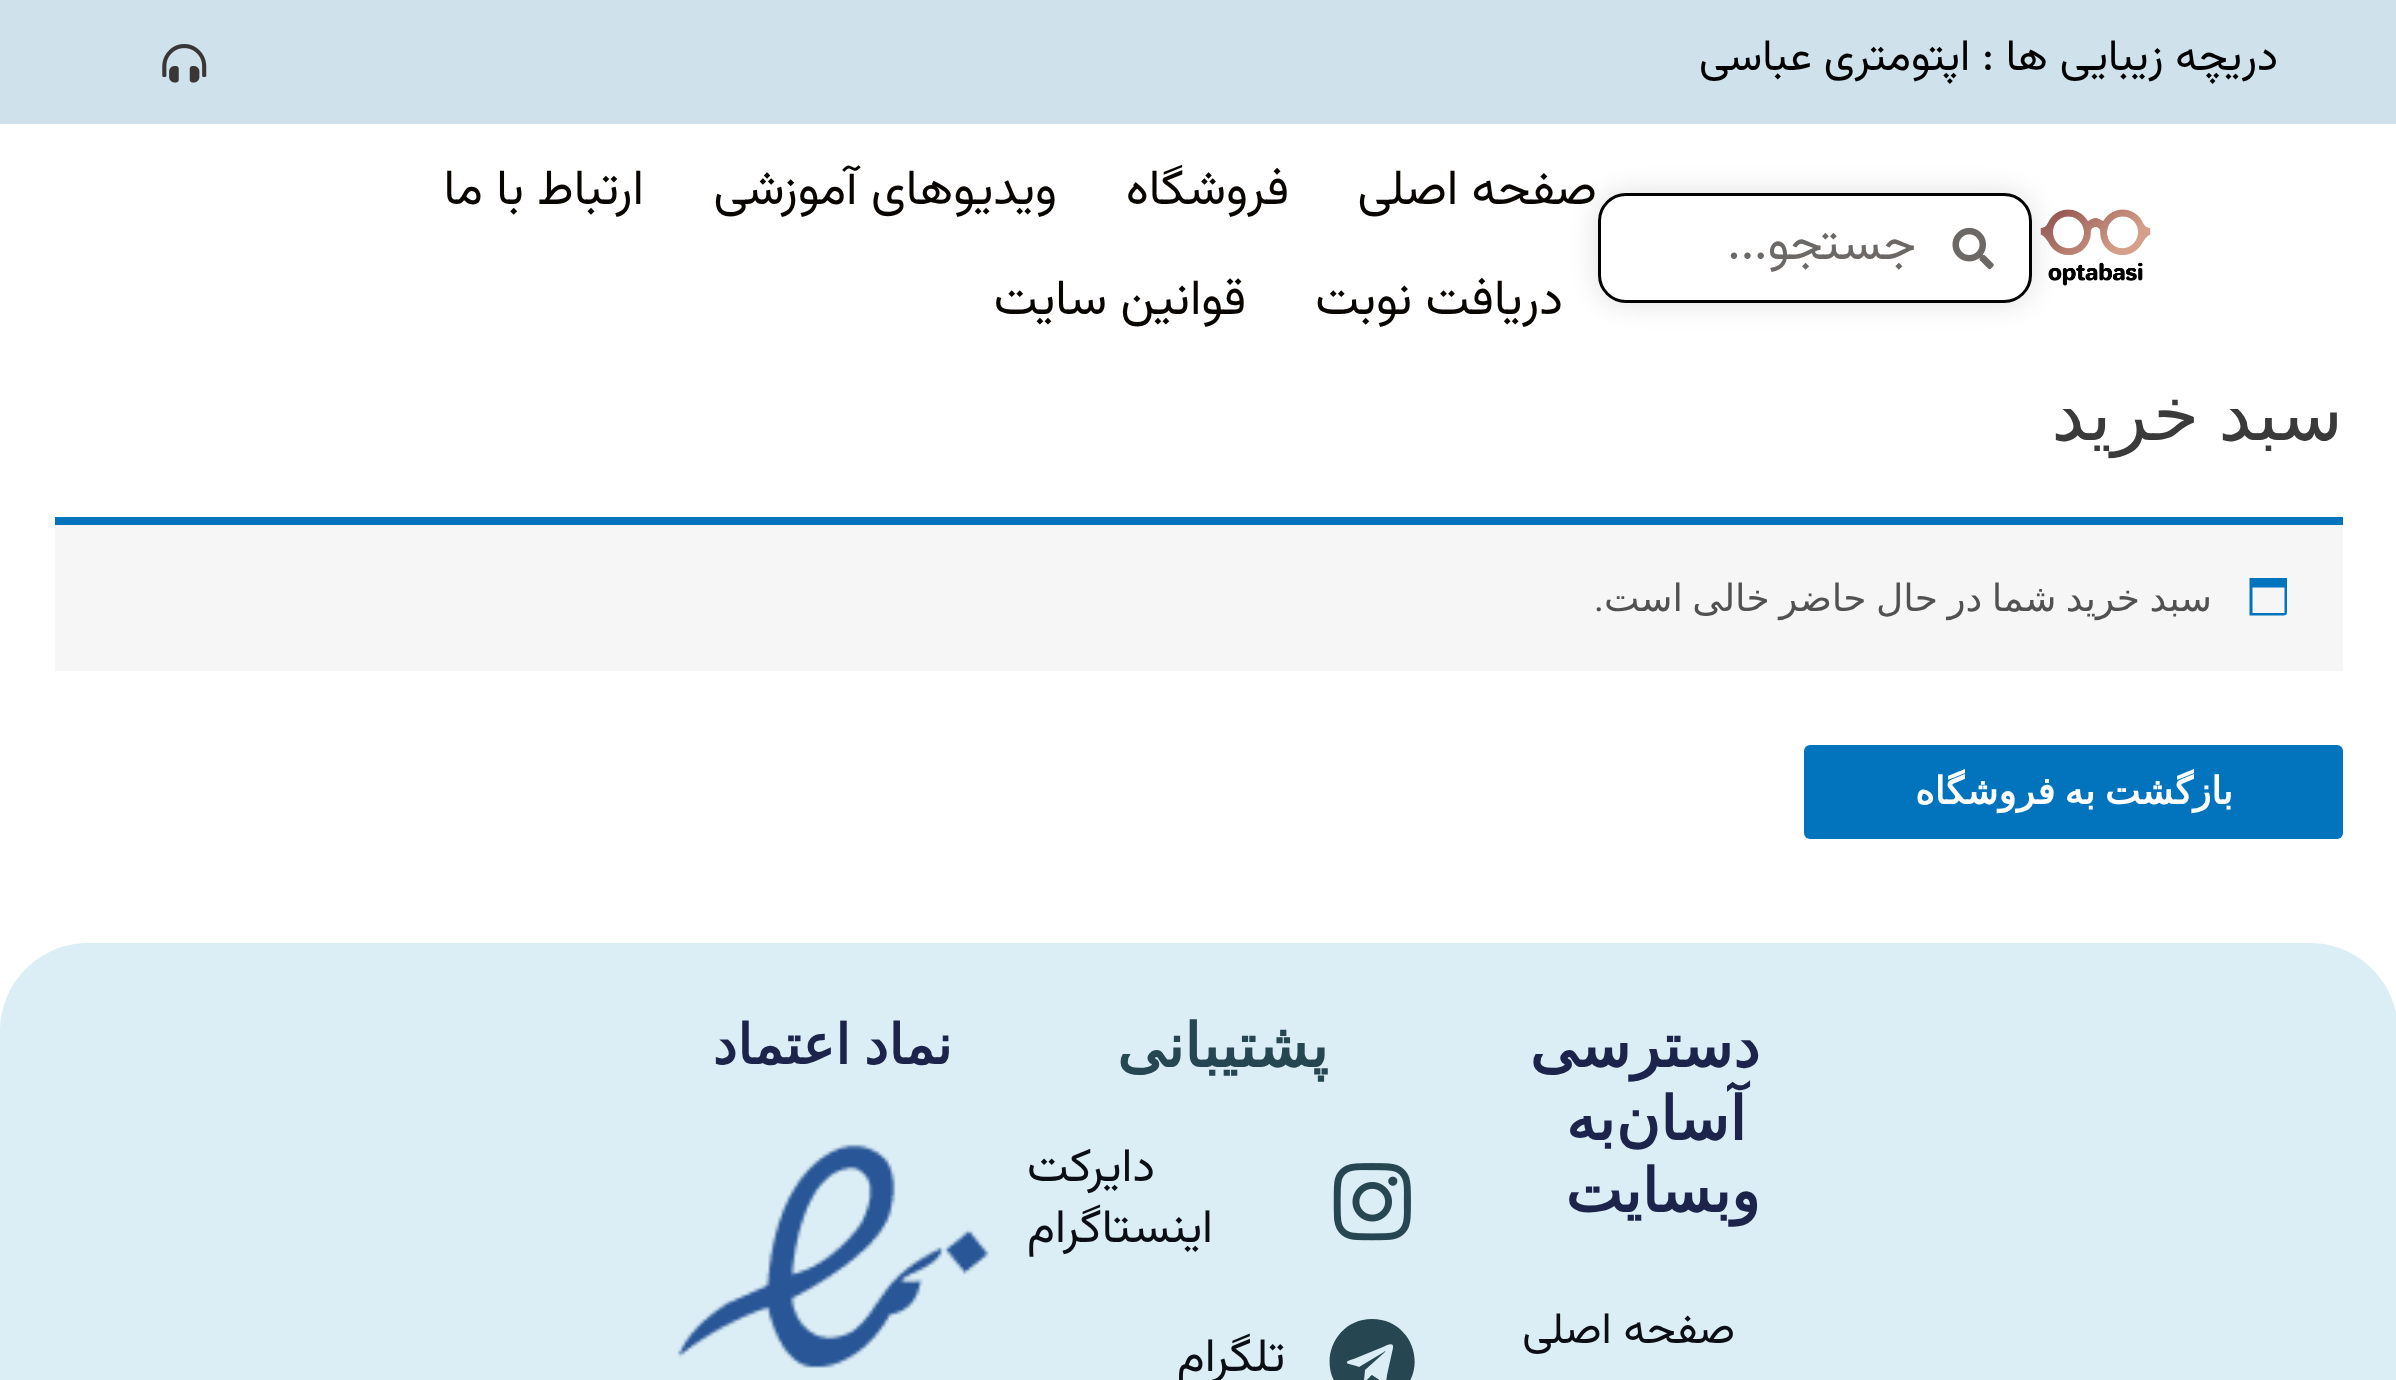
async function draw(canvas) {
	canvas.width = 2396;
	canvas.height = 1380;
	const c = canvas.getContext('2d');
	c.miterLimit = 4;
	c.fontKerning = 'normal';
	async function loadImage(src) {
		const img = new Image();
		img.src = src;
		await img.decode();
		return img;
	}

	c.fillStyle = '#fff';
	c.fillRect(0, 0, 2396, 1380);
	c.fillStyle = '#cfe1ea';
	c.fillRect(0, 0, 2396, 124);
	c.direction = 'rtl';
	c.font = '44px Vazirmatn';
	c.fillStyle = '#000';
	c.fillText('دریچه زیبایی ها : اپتومتری عباسی', 2278, 70);
	c.drawImage(await loadImage('img1.png'), 162, 44, 45, 39);
	c.drawImage(await loadImage('img2.png'), 2040, 209, 111, 77);
	c.fillStyle = '#bcbcbc80';
	c.filter = 'blur(14px)';
	c.beginPath();
	c.roundRect(1598, 193, 434, 110, 28);
	c.fill();
	c.filter = 'none';
	c.fillStyle = '#fff';
	c.beginPath();
	c.roundRect(1599.5, 194.5, 431, 107, 26.5);
	c.fill();
	c.strokeStyle = '#000';
	c.lineWidth = 3;
	c.stroke();
	c.drawImage(await loadImage('img3.png'), 1952, 227, 42, 43);
	c.font = '49.5px Vazirmatn';
	c.fillStyle = '#6b6866';
	c.fillText('جستجو...', 1916, 259);
	c.fillStyle = '#080400';
	for (const [text, x, y] of [
		['صفحه اصلی', 1597, 204],
		['فروشگاه', 1289, 204],
		['ویدیوهای آموزشی', 1057, 204],
		['ارتباط با ما', 644, 204],
		['دریافت نوبت', 1563, 314],
		['قوانین سایت', 1246, 314],
	]) {
		c.fillText(text, x, y);
	}
	c.wordSpacing = '-5px';
	c.font = '75px DejaVu Sans';
	c.fillStyle = '#3a3a3a';
	c.fillText('سبد خرید', 2343, 440);
	c.fillStyle = '#f7f6f7';
	c.fillRect(55, 525, 2288, 146);
	c.fillStyle = '#0274be';
	c.fillRect(55, 517, 2288, 8);
	c.beginPath();
	c.moveTo(2284.5, 587.5);
	c.lineTo(2252.5, 587.5);
	c.lineTo(2252.5, 613);
	c.lineTo(2284.5, 613);
	c.closePath();
	c.moveTo(2287, 578);
	c.lineTo(2287, 606.5);
	c.bezierCurveTo(2287, 616, 2288, 615.5, 2278.5, 615.5);
	c.lineTo(2249.5, 615.5);
	c.lineTo(2249.5, 578);
	c.closePath();
	c.fill();
	c.wordSpacing = '-2.5px';
	c.font = '37.6px DejaVu Sans';
	c.fillStyle = '#515151';
	c.fillText('سبد خرید شما در حال حاضر خالی است', 2212, 611);
	c.wordSpacing = '0px';
	c.font = '37.6px Roboto';
	c.fillText('.', 1604, 611);
	c.fillStyle = '#0274be';
	c.beginPath();
	c.roundRect(1804, 745, 539, 94, 6);
	c.fill();
	c.wordSpacing = '-2.5px';
	c.font = 'bold 37.6px DejaVu Sans';
	c.fillStyle = '#fff';
	c.fillText('بازگشت به فروشگاه', 2233, 804);
	c.fillStyle = '#dceef5';
	c.beginPath();
	c.moveTo(88, 943);
	c.lineTo(2310, 943);
	c.bezierCurveTo(2358.5, 943, 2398, 982.5, 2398, 1031);
	c.lineTo(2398, 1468);
	c.lineTo(0, 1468);
	c.lineTo(0, 1031);
	c.bezierCurveTo(0, 982.5, 39.5, 943, 88, 943);
	c.closePath();
	c.fill();
	c.wordSpacing = '0px';
	c.font = 'bold 60.5px DejaVu Sans';
	c.fillStyle = '#1c244b';
	for (const [text, x, y] of [
		['دسترسی', 1760, 1067],
		['آسان', 1746, 1140],
		['به', 1615, 1140],
		['وبسایت', 1760, 1212],
	]) {
		c.fillText(text, x, y);
	}
	c.font = '44px Vazirmatn';
	c.fillStyle = '#0b0f15';
	c.fillText('صفحه اصلی', 1735, 1343);
	c.font = 'bold 60.5px DejaVu Sans';
	c.fillStyle = '#264651';
	c.fillText('پشتیبانی', 1328, 1067);
	c.drawImage(await loadImage('img4.png'), 1333, 1163, 78, 78);
	c.font = '47px Vazirmatn';
	c.fillStyle = '#0b0f15';
	c.fillText('دایرکت', 1155, 1181);
	c.fillText('اینستاگرام', 1213, 1242);
	c.fillStyle = '#264651';
	c.beginPath();
	c.moveTo(1372, 1319);
	c.bezierCurveTo(1413, 1319, 1430, 1370, 1398, 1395);
	c.bezierCurveTo(1391, 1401, 1382, 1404, 1372, 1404);
	c.bezierCurveTo(1363, 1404, 1354, 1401, 1346, 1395);
	c.bezierCurveTo(1314, 1370, 1332, 1319, 1372, 1319);
	c.closePath();
	c.moveTo(1393, 1348);
	c.bezierCurveTo(1394, 1341, 1386, 1346, 1383, 1347);
	c.lineTo(1356, 1358);
	c.bezierCurveTo(1351, 1360, 1346, 1361, 1347, 1363);
	c.bezierCurveTo(1348, 1364, 1357, 1366, 1359, 1367);
	c.lineTo(1384, 1352);
	c.bezierCurveTo(1384, 1351, 1386, 1351, 1385, 1352);
	c.lineTo(1365, 1370);
	c.lineTo(1364, 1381);
	c.bezierCurveTo(1367, 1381, 1370, 1376, 1372, 1375);
	c.lineTo(1381, 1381);
	c.bezierCurveTo(1387, 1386, 1386, 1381, 1387, 1375);
	c.closePath();
	c.fill();
	c.fillStyle = '#0b0f15';
	c.fillText('تلگرام', 1285, 1371);
	c.wordSpacing = '-4px';
	c.font = 'bold 55px DejaVu Sans';
	c.fillStyle = '#1c244b';
	c.fillText('نماد اعتماد', 952, 1064);
	c.drawImage(await loadImage('img5.png'), 677, 1144, 312, 224);
}

draw(document.querySelector('canvas'));
